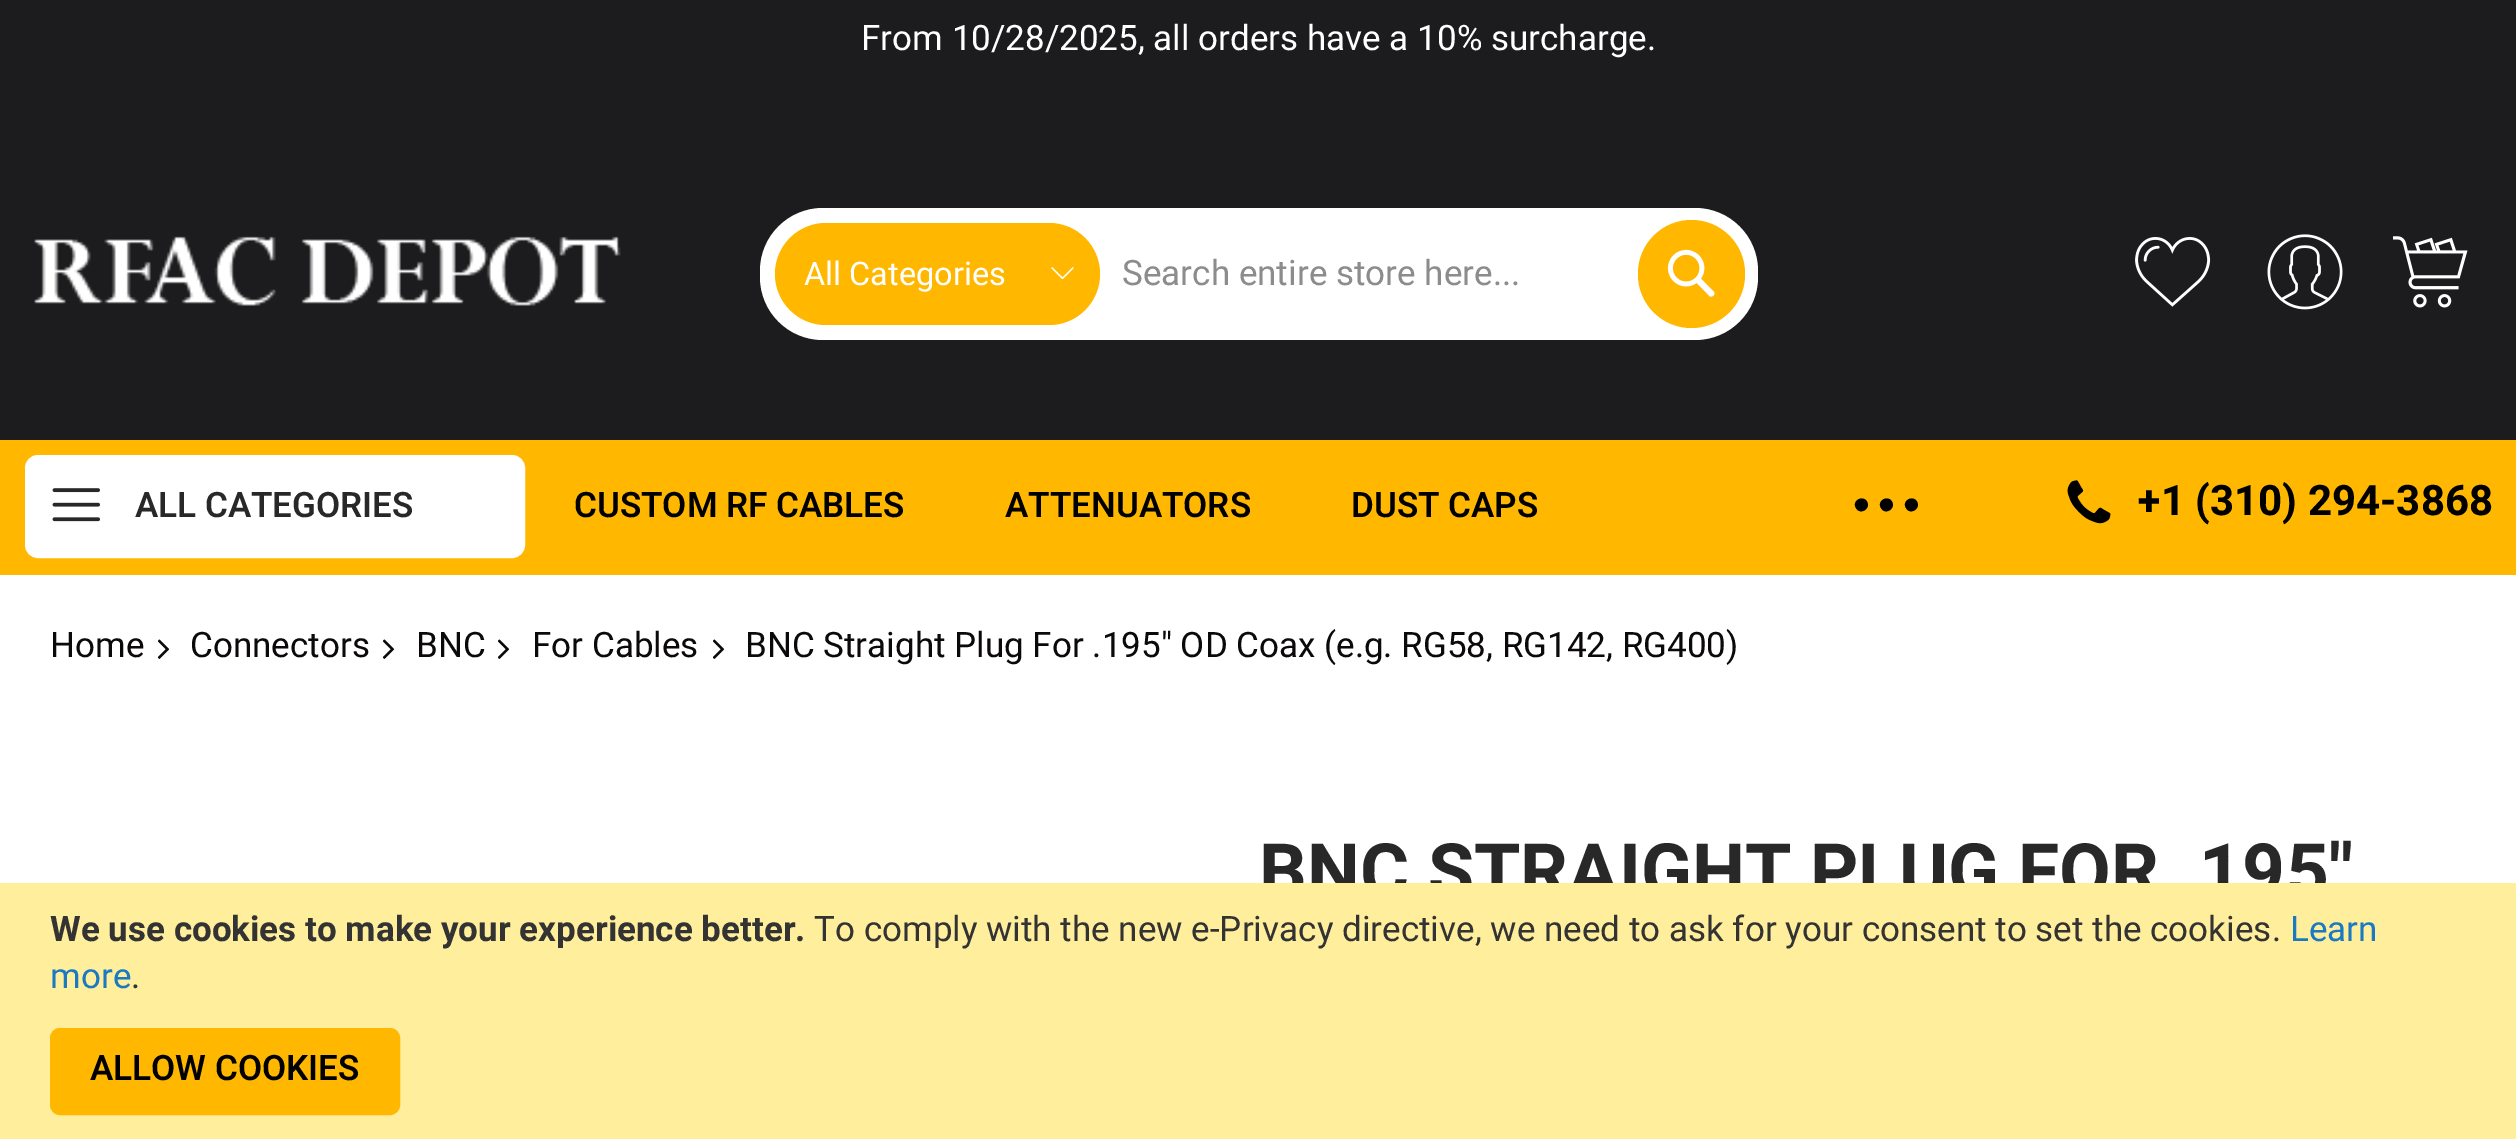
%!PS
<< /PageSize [2516 1139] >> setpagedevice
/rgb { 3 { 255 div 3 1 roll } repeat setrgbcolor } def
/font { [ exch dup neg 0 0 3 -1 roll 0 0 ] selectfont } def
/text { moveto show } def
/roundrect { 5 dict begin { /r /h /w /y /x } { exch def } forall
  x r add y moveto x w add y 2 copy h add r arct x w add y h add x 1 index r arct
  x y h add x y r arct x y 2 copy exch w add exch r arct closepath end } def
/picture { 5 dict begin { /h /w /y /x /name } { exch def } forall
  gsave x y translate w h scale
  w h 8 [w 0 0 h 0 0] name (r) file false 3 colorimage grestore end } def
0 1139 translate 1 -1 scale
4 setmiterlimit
255 255 255 rgb
0 0 2516 1139 rectfill
28 28 30 rgb
0 0 2516 440 rectfill
(img_01.rgb) 34 236 587 70 picture
255 255 255 rgb
760 208 998 132 63 roundrect fill
255 183 0 rgb
775 223 325 102 51 roundrect fill
(img_02.rgb) 1051 267 23 13 picture
1638 220 107 108 53.5 roundrect fill
(img_03.rgb) 1667 249 48 48 picture
(img_04.rgb) 2135 237 76 70 picture
(img_05.rgb) 2267 234 76 76 picture
(img_06.rgb) 2393 236 75 72 picture
0 440 2516 135 rectfill
255 255 255 rgb
26.5 456.5 497 100 11.5 roundrect gsave fill grestore
3 setlinewidth
stroke
(img_07.rgb) 52 488 48 34 picture
0 0 0 rgb
1867 501.5 moveto 4 7.5 -7 14 -11 6.5 rcurveto -4.5 -7 6.5 -13.5 11 -6.5 rcurveto closepath 1892 501.5 moveto 4 7.5 -7 14 -11 6.5 rcurveto -4.5 -7 6.5 -13.5 11 -6.5 rcurveto closepath fill
1917 501.5 moveto 4 7.5 -7 14 -11 6.5 rcurveto -4.5 -7 6.5 -13.5 11 -6.5 rcurveto closepath fill
(img_08.rgb) 2067 480 44 44 picture
(img_09.rgb) 158 639 12 20 picture
(img_09.rgb) 383 639 12 20 picture
(img_09.rgb) 498 639 12 20 picture
(img_09.rgb) 713 639 12 20 picture
/Heebo-Regular 35 font
255 255 255 rgb
(From 10/28/2025, all orders have a 10% surcharge.) 861 50 text
/Heebo-Regular 32.5 font
(All Categories) 804 285 text
/Heebo-Regular 35 font
140 140 140 rgb
(Search entire store here...) 1122 285 text
/Heebo-SemiBold 35 font
40 40 40 rgb
(ALL CATEGORIES) 135 517 text
0 0 0 rgb
(CUSTOM RF CABLES) 574 517 text
(ATTENUATORS) 1005 517 text
(DUST CAPS) 1351 517 text
/Heebo-Bold 42 font
(+1 \(310\) 294-3868) 2137 515 text
/Heebo-Regular 35 font
12 9 10 rgb
(Home) 50 657 text
(Connectors) 190 657 text
(BNC) 416 657 text
(For Cables) 532 657 text
(BNC Straight Plug For .195" OD Coax \(e.g. RG58, RG142, RG400\)) 745 657 text
/Heebo-Bold 75 font
40 40 40 rgb
(BNC STRAIGHT PLUG FOR .195") 1259 897 text
255 238 156 rgb
0 883 2516 256 rectfill
/Heebo-Bold 35 font
51 51 51 rgb
(We use cookies to make your experience better.) 50 941 text
/Heebo-Regular 35 font
(To comply with the new e-Privacy directive, we need to ask for your consent to set the cookies.) 814 941 text
25 121 195 rgb
(Learn) 2290 941 text
(more) 50 988 text
51 51 51 rgb
(.) 131 988 text
255 183 0 rgb
51.5 1029.5 347 84 8.5 roundrect gsave fill grestore
stroke
/Heebo-SemiBold 35 font
0 0 0 rgb
(ALLOW COOKIES) 90 1080 text
showpage
